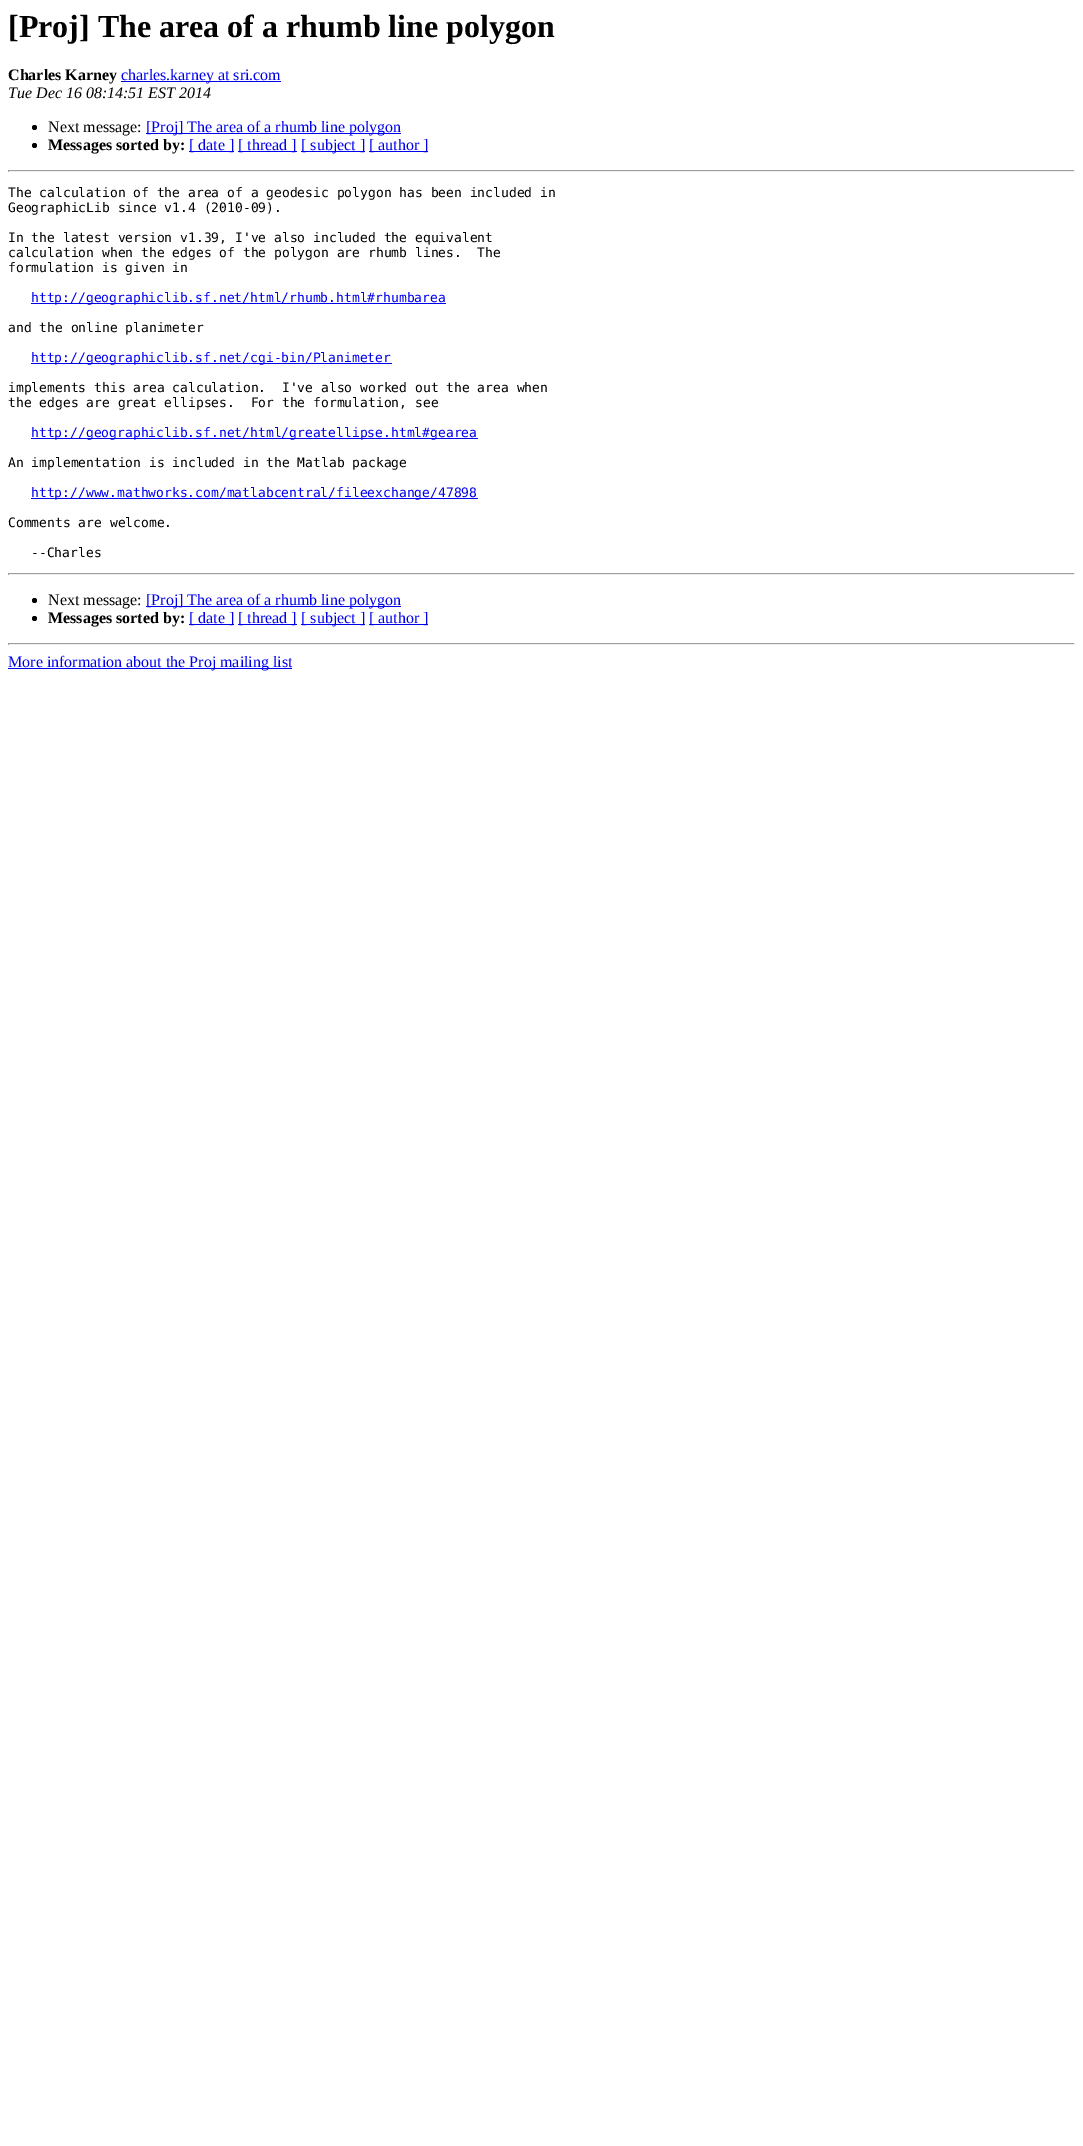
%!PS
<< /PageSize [1083 2146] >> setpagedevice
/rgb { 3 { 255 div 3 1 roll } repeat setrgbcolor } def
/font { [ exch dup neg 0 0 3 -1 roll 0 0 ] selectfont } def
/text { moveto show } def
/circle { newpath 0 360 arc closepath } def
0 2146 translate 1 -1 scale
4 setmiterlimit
255 255 255 rgb
0 0 1083 2146 rectfill
0 0 238 rgb
121 81 160 1 rectfill
0 0 0 rgb
34.5 127.5 2.5 circle fill
0 0 238 rgb
146 133 255 1 rectfill
0 0 0 rgb
34.5 145.5 2.5 circle fill
0 0 238 rgb
189 151 45 1 rectfill
238 151 59 1 rectfill
301 151 64 1 rectfill
369 151 59 1 rectfill
159 159 159 rgb
8 170 1067 1 rectfill
238 238 238 rgb
1074 170 1 2 rectfill
8 171 1067 1 rectfill
159 159 159 rgb
8 170 1 2 rectfill
0 0 238 rgb
31 303 415 1 rectfill
31 363 361 1 rectfill
31 438 447 1 rectfill
31 498 447 1 rectfill
159 159 159 rgb
8 573 1067 1 rectfill
238 238 238 rgb
1074 573 1 2 rectfill
8 574 1067 1 rectfill
159 159 159 rgb
8 573 1 2 rectfill
0 0 0 rgb
34.5 600.5 2.5 circle fill
0 0 238 rgb
146 606 255 1 rectfill
0 0 0 rgb
34.5 618.5 2.5 circle fill
0 0 238 rgb
189 624 45 1 rectfill
238 624 59 1 rectfill
301 624 64 1 rectfill
369 624 59 1 rectfill
159 159 159 rgb
8 643 1067 1 rectfill
238 238 238 rgb
1074 643 1 2 rectfill
8 644 1067 1 rectfill
159 159 159 rgb
8 643 1 2 rectfill
0 0 238 rgb
8 668 284 1 rectfill
/LiberationSerif-Bold 32 font
0 0 0 rgb
([Proj] The area of a rhumb line polygon) 8 37 text
/LiberationSerif-Bold 16 font
(Charles Karney) 8 80 text
/LiberationSerif-Regular 16 font
0 0 238 rgb
(charles.karney at sri.com) 121 80 text
/LiberationSerif-Italic 16 font
0 0 0 rgb
(Tue Dec 16 08:14:51 EST 2014) 8 98 text
/LiberationSerif-Regular 16 font
(Next message:) 48 132 text
0 0 238 rgb
([Proj] The area of a rhumb line polygon) 146 132 text
/LiberationSerif-Bold 16 font
0 0 0 rgb
(Messages sorted by:) 48 150 text
/LiberationSerif-Regular 16 font
0 0 238 rgb
([ date ]) 189 150 text
([ thread ]) 238 150 text
([ subject ]) 301 150 text
([ author ]) 369 150 text
/DejaVuSansMono-Regular 13 font
0 0 0 rgb
(The calculation of the area of a geodesic polygon has been included in) 8 197 text
(GeographicLib since v1.4 \(2010-09\).) 8 212 text
(In the latest version v1.39, I've also included the equivalent) 8 242 text
(calculation when the edges of the polygon are rhumb lines.  The) 8 257 text
(formulation is given in) 8 272 text
0 0 238 rgb
(http://geographiclib.sf.net/html/rhumb.html#rhumbarea) 31 302 text
0 0 0 rgb
(and the online planimeter) 8 332 text
0 0 238 rgb
(http://geographiclib.sf.net/cgi-bin/Planimeter) 31 362 text
0 0 0 rgb
(implements this area calculation.  I've also worked out the area when) 8 392 text
(the edges are great ellipses.  For the formulation, see) 8 407 text
0 0 238 rgb
(http://geographiclib.sf.net/html/greatellipse.html#gearea) 31 437 text
0 0 0 rgb
(An implementation is included in the Matlab package) 8 467 text
0 0 238 rgb
(http://www.mathworks.com/matlabcentral/fileexchange/47898) 31 497 text
0 0 0 rgb
(Comments are welcome.) 8 527 text
(--Charles) 31 557 text
/LiberationSerif-Regular 16 font
(Next message:) 48 605 text
0 0 238 rgb
([Proj] The area of a rhumb line polygon) 146 605 text
/LiberationSerif-Bold 16 font
0 0 0 rgb
(Messages sorted by:) 48 623 text
/LiberationSerif-Regular 16 font
0 0 238 rgb
([ date ]) 189 623 text
([ thread ]) 238 623 text
([ subject ]) 301 623 text
([ author ]) 369 623 text
(More information about the Proj mailing list) 8 667 text
showpage
